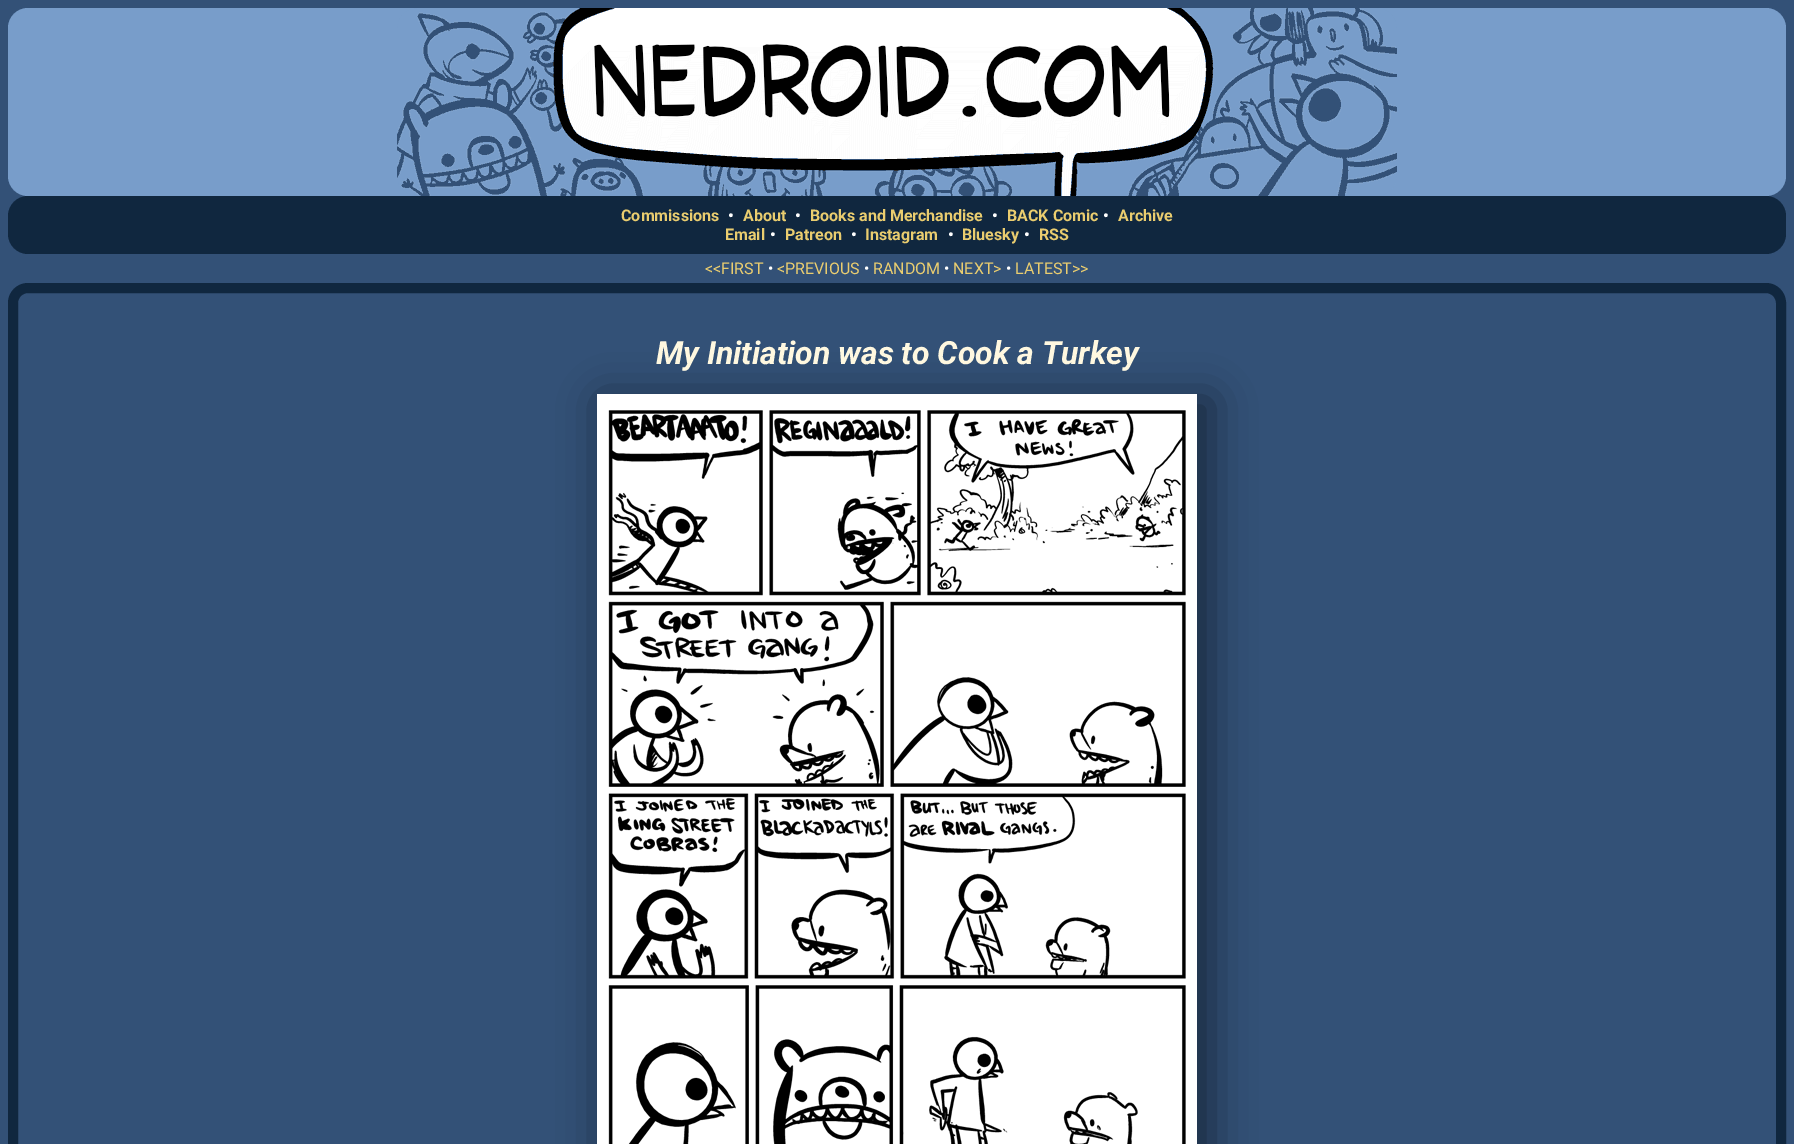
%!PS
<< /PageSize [1794 1144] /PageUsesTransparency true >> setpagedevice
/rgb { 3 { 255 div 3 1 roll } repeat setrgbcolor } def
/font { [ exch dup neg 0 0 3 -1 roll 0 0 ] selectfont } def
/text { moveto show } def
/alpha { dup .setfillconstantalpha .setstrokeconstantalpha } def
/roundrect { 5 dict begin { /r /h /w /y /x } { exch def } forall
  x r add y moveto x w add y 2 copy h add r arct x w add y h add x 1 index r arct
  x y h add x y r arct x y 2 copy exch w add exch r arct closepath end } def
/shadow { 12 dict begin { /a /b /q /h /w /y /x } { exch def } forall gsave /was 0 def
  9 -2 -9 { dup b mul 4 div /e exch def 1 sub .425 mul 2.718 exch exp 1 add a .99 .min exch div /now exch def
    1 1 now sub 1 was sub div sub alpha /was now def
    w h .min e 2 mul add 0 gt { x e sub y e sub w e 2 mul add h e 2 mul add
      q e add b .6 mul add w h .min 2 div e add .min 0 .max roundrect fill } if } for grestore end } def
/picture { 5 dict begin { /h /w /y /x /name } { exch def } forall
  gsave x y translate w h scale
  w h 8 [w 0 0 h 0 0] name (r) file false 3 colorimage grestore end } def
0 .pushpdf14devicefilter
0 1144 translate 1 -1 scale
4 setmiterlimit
51 81 119 rgb
0 0 1794 1144 rectfill
120 157 202 rgb
8 8 1778 188 20 roundrect fill
(img_01.rgb) 397 8 1000 188 picture
16 39 63 rgb
8 196 1778 58 20 roundrect fill
10 setlinewidth
13 288 1768 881 15 roundrect stroke
0 0 0 rgb
602 399 610 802 0 21 0.47 shadow
(img_02.rgb) 597 394 600 750 picture
/Roboto-Bold 16 font
234 205 111 rgb
(Commissions) 621 221 text
255 255 255 rgb
(•) 728 221 text
234 205 111 rgb
(About) 743 221 text
255 255 255 rgb
(•) 795 221 text
234 205 111 rgb
(Books and Merchandise) 810 221 text
255 255 255 rgb
(•) 992 221 text
234 205 111 rgb
(BACK Comic) 1007 221 text
255 255 255 rgb
(•) 1103 221 text
234 205 111 rgb
(Archive) 1118 221 text
(Email) 725 240 text
255 255 255 rgb
(•) 770 240 text
234 205 111 rgb
(Patreon) 785 240 text
255 255 255 rgb
(•) 851 240 text
234 205 111 rgb
(Instagram) 865 240 text
255 255 255 rgb
(•) 948 240 text
234 205 111 rgb
(Bluesky) 962 240 text
255 255 255 rgb
(•) 1024 240 text
234 205 111 rgb
(RSS) 1039 240 text
/Roboto-Regular 16 font
(<<FIRST) 705 274 text
255 255 255 rgb
(•) 768 274 text
234 205 111 rgb
(<PREVIOUS) 777 274 text
255 255 255 rgb
(•) 864 274 text
234 205 111 rgb
(RANDOM) 873 274 text
255 255 255 rgb
(•) 944 274 text
234 205 111 rgb
(NEXT>) 953 274 text
255 255 255 rgb
(•) 1006 274 text
234 205 111 rgb
(LATEST>>) 1015 274 text
/Roboto-BoldItalic 32 font
255 248 224 rgb
(My Initiation was to Cook a Turkey) 656 364 text
.poppdf14devicefilter showpage
